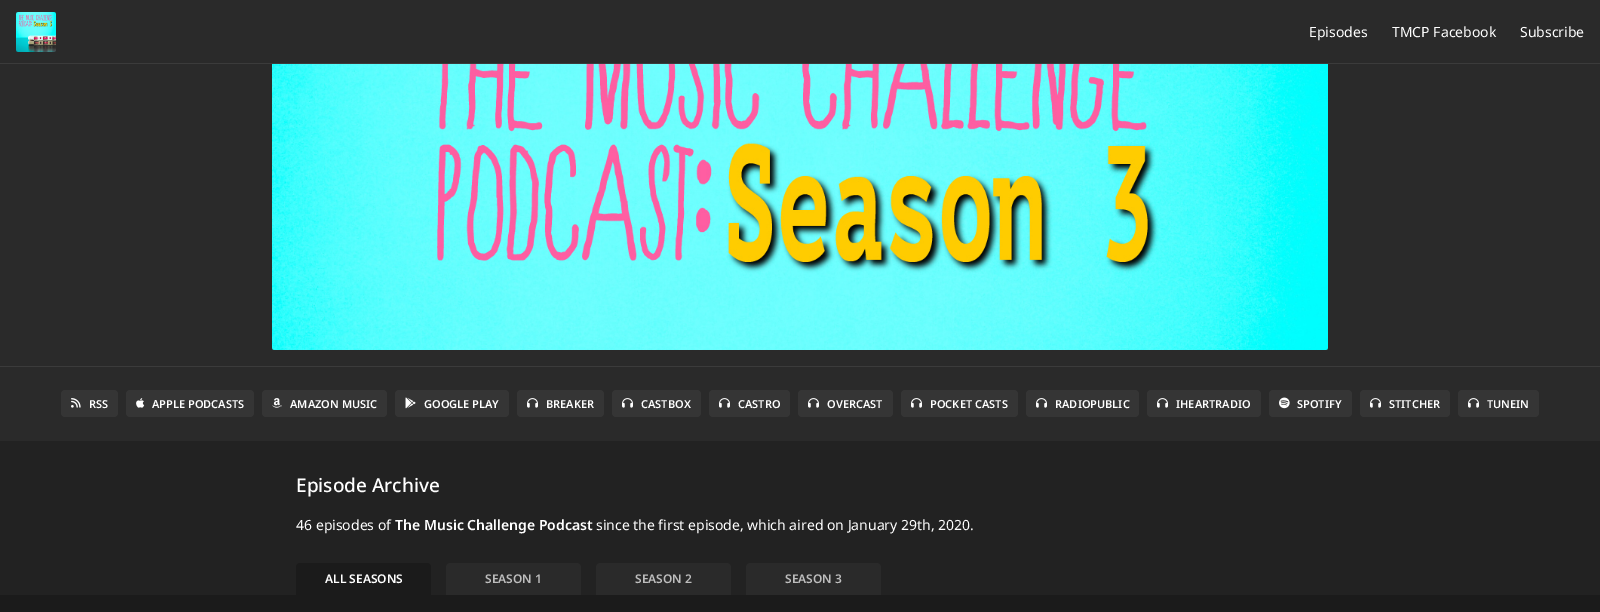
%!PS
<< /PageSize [1600 612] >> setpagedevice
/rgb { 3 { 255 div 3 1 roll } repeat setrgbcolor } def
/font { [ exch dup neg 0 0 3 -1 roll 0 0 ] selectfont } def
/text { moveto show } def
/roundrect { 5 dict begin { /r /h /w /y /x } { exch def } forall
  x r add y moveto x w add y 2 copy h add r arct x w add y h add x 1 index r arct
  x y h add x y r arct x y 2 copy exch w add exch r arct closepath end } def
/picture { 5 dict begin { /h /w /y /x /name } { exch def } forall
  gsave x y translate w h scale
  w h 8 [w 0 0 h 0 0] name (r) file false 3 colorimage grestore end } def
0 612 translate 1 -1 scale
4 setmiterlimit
34 34 34 rgb
0 0 1600 612 rectfill
42 42 42 rgb
0 0 1600 63 rectfill
59 59 59 rgb
0 63 1600 1 rectfill
(img_01.rgb) 16 12 40 40 picture
42 42 42 rgb
0 64 1600 302 rectfill
(img_02.rgb) 272 64 1056 286 picture
0 367 1600 74 rectfill
59 59 59 rgb
0 366 1600 1 rectfill
53 53 53 rgb
61 390 57 27 4 roundrect fill
(img_03.rgb) 71 398 10 10 picture
126 390 128 27 4 roundrect fill
(img_04.rgb) 136 398 9 10 picture
262 390 125 27 4 roundrect fill
(img_05.rgb) 272 398 10 10 picture
395 390 114 27 4 roundrect fill
(img_06.rgb) 405 397 11 12 picture
517 390 87 27 4 roundrect fill
(img_07.rgb) 527 398 11 10 picture
612 390 89 27 4 roundrect fill
(img_07.rgb) 622 398 11 10 picture
709 390 81 27 4 roundrect fill
(img_07.rgb) 719 398 11 10 picture
798 390 95 27 4 roundrect fill
(img_07.rgb) 808 398 11 10 picture
901 390 117 27 4 roundrect fill
(img_07.rgb) 911 398 11 10 picture
1026 390 113 27 4 roundrect fill
(img_07.rgb) 1036 398 11 10 picture
1147 390 114 27 4 roundrect fill
(img_07.rgb) 1157 398 11 10 picture
1269 390 83 27 4 roundrect fill
(img_08.rgb) 1279 397 11 12 picture
1360 390 90 27 4 roundrect fill
(img_07.rgb) 1370 398 11 10 picture
1458 390 81 27 4 roundrect fill
(img_07.rgb) 1468 398 11 10 picture
27 27 27 rgb
300 563 moveto 127 0 rlineto 2 0 4 2 4 4 rcurveto 0 28 rlineto -135 0 rlineto 0 -28 rlineto 0 -2 2 -4 4 -4 rcurveto closepath fill
42 42 42 rgb
450 563 moveto 127 0 rlineto 2 0 4 2 4 4 rcurveto 0 28 rlineto -135 0 rlineto 0 -28 rlineto 0 -2 2 -4 4 -4 rcurveto closepath fill
600 563 moveto 127 0 rlineto 2 0 4 2 4 4 rcurveto 0 28 rlineto -135 0 rlineto 0 -28 rlineto 0 -2 2 -4 4 -4 rcurveto closepath fill
750 563 moveto 127 0 rlineto 2 0 4 2 4 4 rcurveto 0 28 rlineto -135 0 rlineto 0 -28 rlineto 0 -2 2 -4 4 -4 rcurveto closepath fill
27 27 27 rgb
0 595 1600 17 rectfill
/NotoSans-Regular 14 font
255 255 255 rgb
(Episodes) 1309 37 text
(TMCP Facebook) 1392 37 text
(Subscribe) 1520 37 text
/NotoSans-SemiBold 11 font
(RSS) 89 408 text
(APPLE PODCASTS) 152 408 text
(AMAZON MUSIC) 290 408 text
(GOOGLE PLAY) 424 408 text
(BREAKER) 546 408 text
(CASTBOX) 641 408 text
(CASTRO) 738 408 text
(OVERCAST) 827 408 text
(POCKET CASTS) 930 408 text
(RADIOPUBLIC) 1055 408 text
(IHEARTRADIO) 1176 408 text
(SPOTIFY) 1297 408 text
(STITCHER) 1389 408 text
(TUNEIN) 1487 408 text
/NotoSans-Medium 19 font
(Episode Archive) 296 492 text
/NotoSans-Regular 14 font
(46 episodes of) 296 530 text
/NotoSans-SemiBold 14 font
(The Music Challenge Podcast) 395 530 text
/NotoSans-Regular 14 font
(since the first episode, which aired on January 29th, 2020.) 596 530 text
/NotoSans-SemiBold 12 font
(ALL SEASONS) 325 583 text
189 189 189 rgb
(SEASON 1) 485 583 text
(SEASON 2) 635 583 text
(SEASON 3) 785 583 text
showpage
